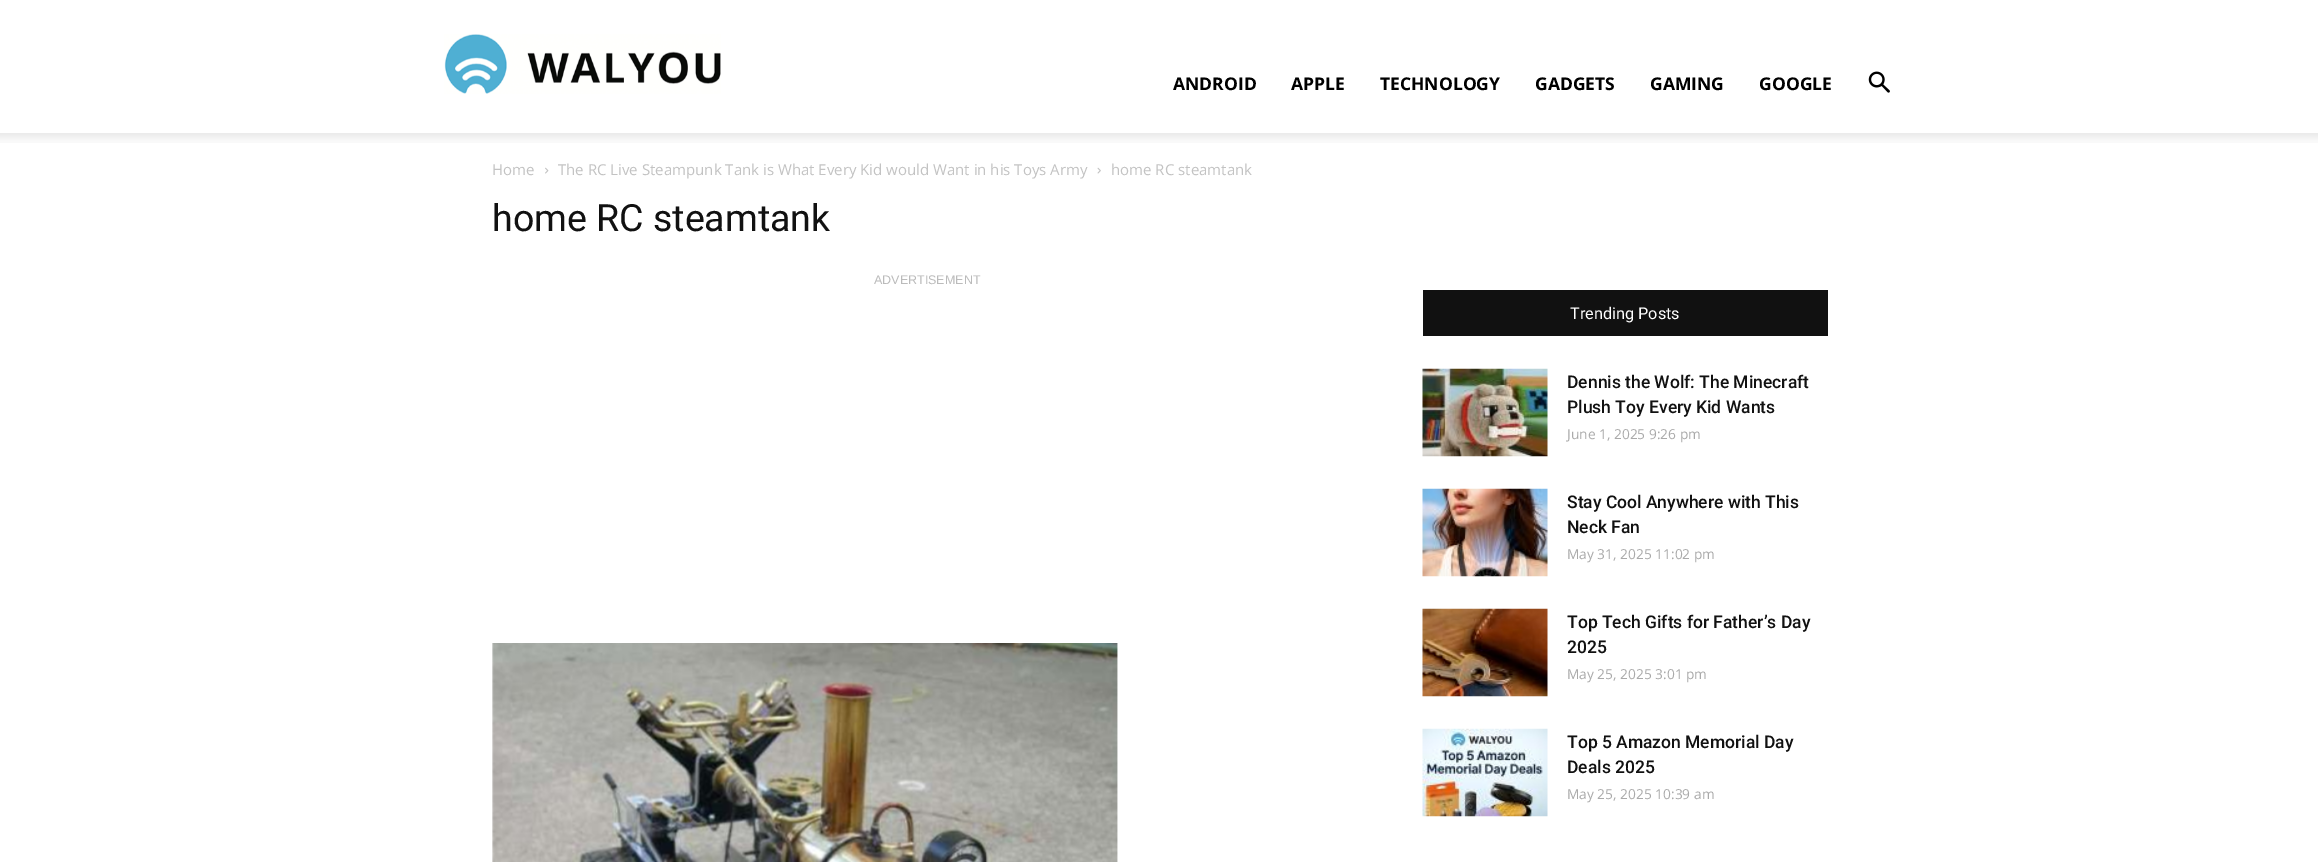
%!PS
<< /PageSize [2318 862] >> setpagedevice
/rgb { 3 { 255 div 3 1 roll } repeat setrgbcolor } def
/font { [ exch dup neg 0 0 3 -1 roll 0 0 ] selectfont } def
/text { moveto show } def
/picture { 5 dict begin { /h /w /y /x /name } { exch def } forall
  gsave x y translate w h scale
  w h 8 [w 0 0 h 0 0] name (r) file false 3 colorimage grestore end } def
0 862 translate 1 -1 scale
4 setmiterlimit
255 255 255 rgb
0 0 2318 862 rectfill
(img_01.rgb) 444 34 277 60 picture
(img_02.rgb) 1868 71 22 22 picture
(img_03.rgb) 0 133 2318 10 picture
(img_04.rgb) 545 167 4 7 picture
(img_05.rgb) 1097 167 4 7 picture
(img_06.rgb) 492 643 626 219 picture
17 17 17 rgb
1423 290 405 46 rectfill
(img_07.rgb) 1422 368 126 89 picture
(img_08.rgb) 1422 488 126 89 picture
(img_09.rgb) 1422 608 126 89 picture
(img_10.rgb) 1422 728 126 89 picture
/OpenSans-Bold 17.5 font
0 0 0 rgb
(ANDROID) 1173 90 text
(APPLE) 1291 90 text
(TECHNOLOGY) 1380 90 text
(GADGETS) 1535 90 text
(GAMING) 1650 90 text
(GOOGLE) 1759 90 text
/OpenSans-Regular 15 font
195 195 195 rgb
(Home) 492 175 text
(The RC Live Steampunk Tank is What Every Kid would Want in his Toys Army) 558 175 text
(home RC steamtank) 1111 175 text
/Roboto-Regular 37.5 font
17 17 17 rgb
(home RC steamtank) 492 231 text
/LiberationSans-Regular 12.5 font
187 187 187 rgb
(ADVERTISEMENT) 874 284 text
/Roboto-Regular 16.25 font
255 255 255 rgb
(Trending Posts) 1570 319 text
/Roboto-Medium 17.5 font
17 17 17 rgb
(Dennis the Wolf: The Minecraft) 1567 388 text
(Plush Toy Every Kid Wants) 1567 413 text
/OpenSans-Regular 13.75 font
170 170 170 rgb
(June 1, 2025 9:26 pm) 1567 439 text
/Roboto-Medium 17.5 font
17 17 17 rgb
(Stay Cool Anywhere with This) 1567 508 text
(Neck Fan) 1567 533 text
/OpenSans-Regular 13.75 font
170 170 170 rgb
(May 31, 2025 11:02 pm) 1567 559 text
/Roboto-Medium 17.5 font
17 17 17 rgb
(Top Tech Gifts for Father’s Day) 1567 628 text
(2025) 1567 653 text
/OpenSans-Regular 13.75 font
170 170 170 rgb
(May 25, 2025 3:01 pm) 1567 679 text
/Roboto-Medium 17.5 font
17 17 17 rgb
(Top 5 Amazon Memorial Day) 1567 748 text
(Deals 2025) 1567 773 text
/OpenSans-Regular 13.75 font
170 170 170 rgb
(May 25, 2025 10:39 am) 1567 799 text
showpage
